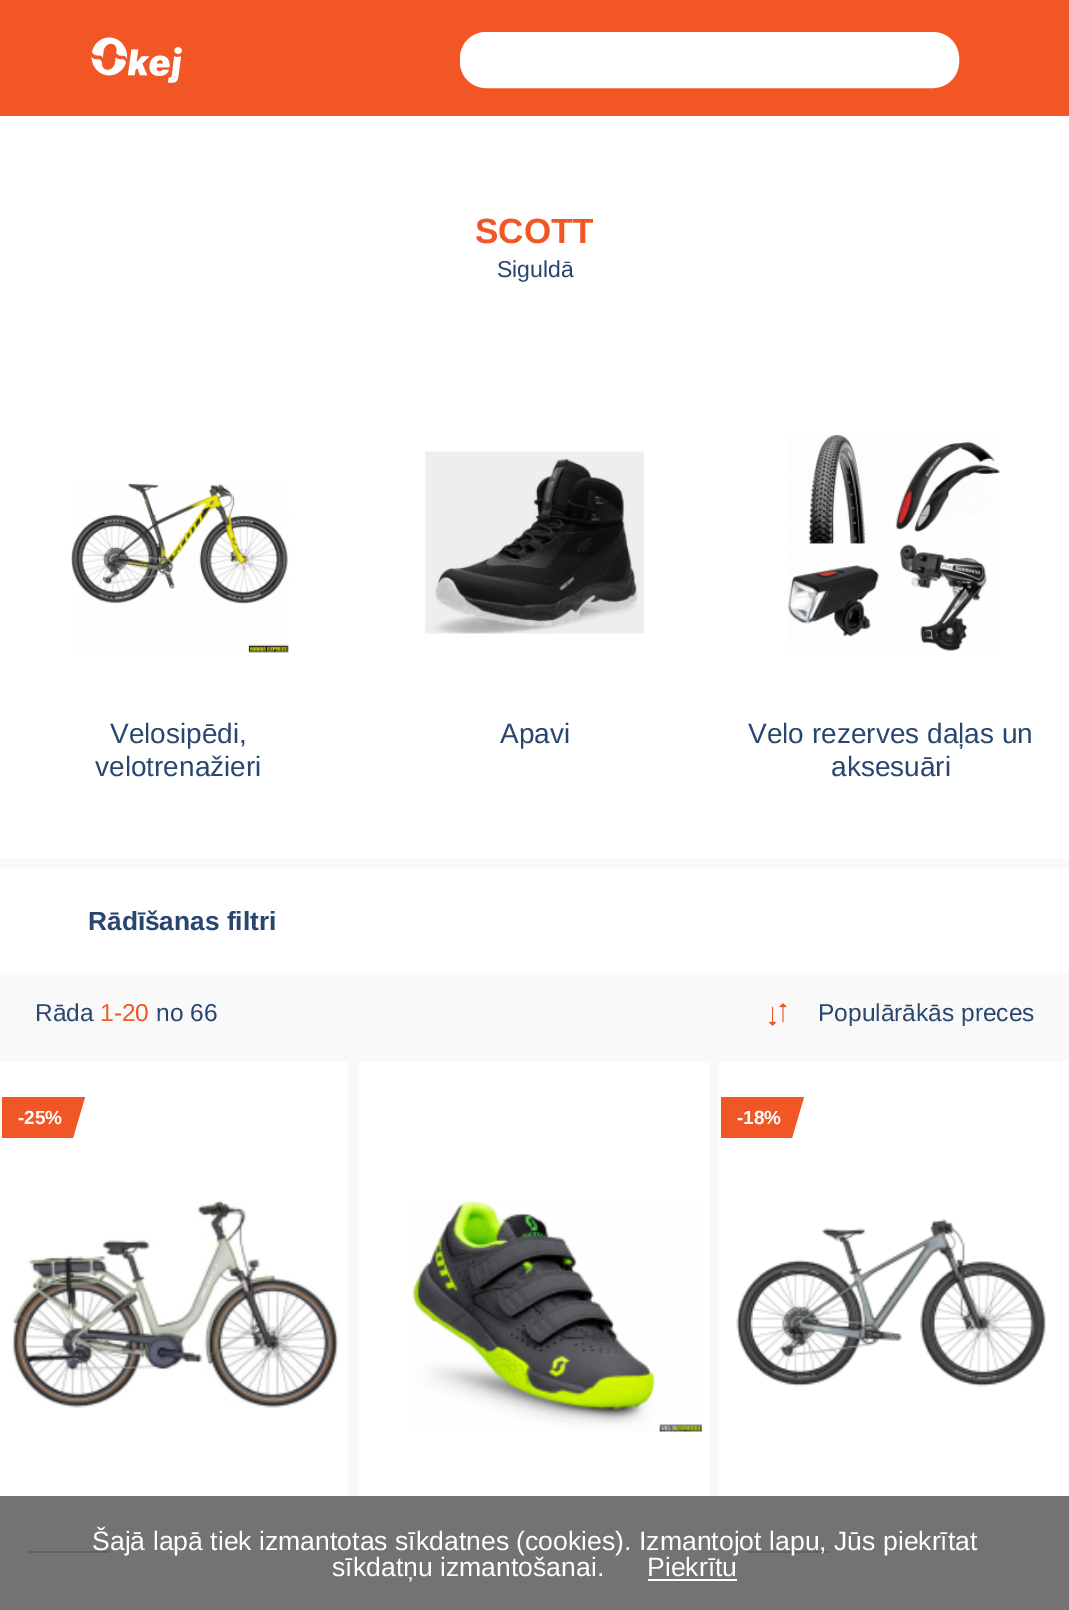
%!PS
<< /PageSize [1069 1610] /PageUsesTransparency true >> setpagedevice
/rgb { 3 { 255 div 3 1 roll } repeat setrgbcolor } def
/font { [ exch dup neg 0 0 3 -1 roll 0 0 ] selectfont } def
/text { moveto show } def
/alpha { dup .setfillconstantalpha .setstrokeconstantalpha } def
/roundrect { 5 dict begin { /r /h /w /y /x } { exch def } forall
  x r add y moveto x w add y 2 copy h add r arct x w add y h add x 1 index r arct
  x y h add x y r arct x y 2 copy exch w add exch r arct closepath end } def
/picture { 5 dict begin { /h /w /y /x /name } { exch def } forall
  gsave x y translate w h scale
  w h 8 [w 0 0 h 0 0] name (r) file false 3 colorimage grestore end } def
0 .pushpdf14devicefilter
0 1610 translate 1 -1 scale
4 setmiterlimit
242 86 36 rgb
0 0 1069 1610 rectfill
(img_01.rgb) 91 37 91 46 picture
255 255 255 rgb
461 33 497 54 25 roundrect gsave fill grestore
2 setlinewidth
stroke
249 249 249 rgb
0 858 1069 752 rectfill
255 255 255 rgb
0 116 1069 742 rectfill
(img_02.rgb) 71 483 218 170 picture
(img_03.rgb) 425 451 219 183 picture
(img_04.rgb) 787 434 213 217 picture
0 868 1069 105 rectfill
(img_05.rgb) 769 1003 18 23 picture
0 1062 348 548 rectfill
241 86 38 rgb
85 1097 moveto -83 0 rlineto 0 41 rlineto 71 0 rlineto closepath eofill
(img_06.rgb) 11 1200 328 208 picture
40 70 111 rgb
28 1551 82 2 rectfill
255 255 255 rgb
359 1062 350 548 rectfill
(img_07.rgb) 412 1201 290 231 picture
719 1062 349 548 rectfill
241 86 38 rgb
804 1097 moveto -83 0 rlineto 0 41 rlineto 71 0 rlineto closepath eofill
(img_08.rgb) 736 1219 310 168 picture
40 70 111 rgb
747 1551 83 2 rectfill
0.9 alpha
100 100 100 rgb
0 1496 1069 114 rectfill
1 alpha
255 255 255 rgb
648 1579 89 2 rectfill
/LiberationSans-Bold 35 font
242 86 36 rgb
(SCOTT) 475 243 text
/LiberationSans-Regular 23 font
40 70 111 rgb
(Siguldā) 497 277 text
/LiberationSans-Regular 28 font
(Velosipēdi,) 110 743 text
(velotrenažieri) 95 776 text
(Apavi) 500 743 text
(Velo rezerves daļas un) 748 743 text
(aksesuāri) 831 776 text
/LiberationSans-Bold 26.25 font
(Rādīšanas filtri) 88 930 text
/LiberationSans-Regular 24.5 font
(Rāda) 35 1021 text
242 86 36 rgb
(1-20) 100 1021 text
40 70 111 rgb
(no 66) 156 1021 text
(Populārākās preces) 818 1021 text
/LiberationSans-Bold 19 font
255 255 255 rgb
(-25%) 18 1124 text
(-18%) 737 1124 text
/LiberationSans-Regular 26.6 font
(Šajā lapā tiek izmantotas sīkdatnes \(cookies\). Izmantojot lapu, Jūs piekrītat) 92 1550 text
(sīkdatņu izmantošanai.) 332 1576 text
(Piekrītu) 647 1576 text
.poppdf14devicefilter showpage
